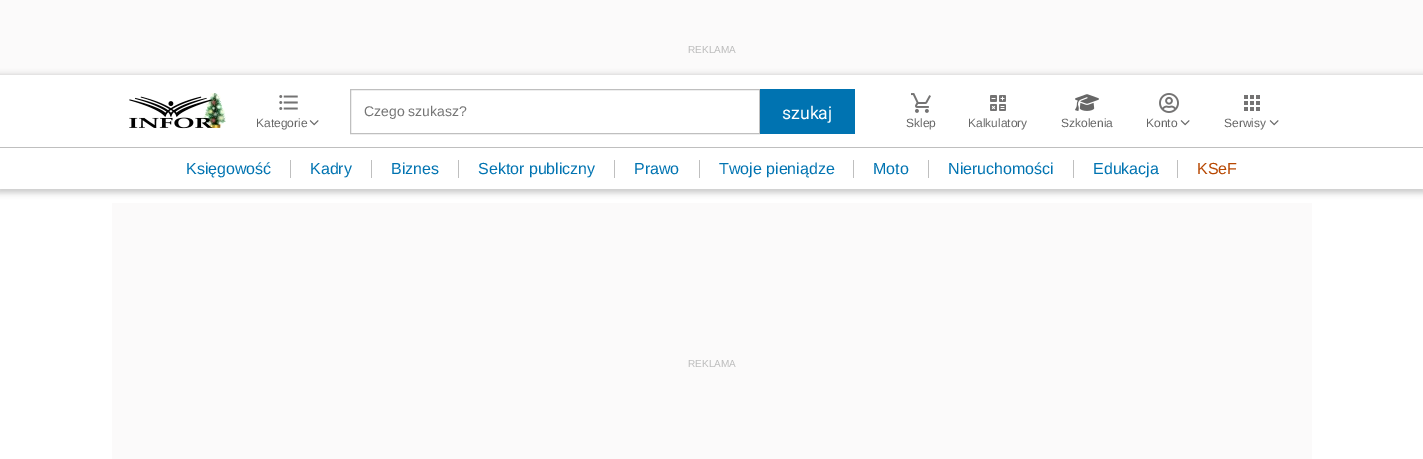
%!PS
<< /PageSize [1423 459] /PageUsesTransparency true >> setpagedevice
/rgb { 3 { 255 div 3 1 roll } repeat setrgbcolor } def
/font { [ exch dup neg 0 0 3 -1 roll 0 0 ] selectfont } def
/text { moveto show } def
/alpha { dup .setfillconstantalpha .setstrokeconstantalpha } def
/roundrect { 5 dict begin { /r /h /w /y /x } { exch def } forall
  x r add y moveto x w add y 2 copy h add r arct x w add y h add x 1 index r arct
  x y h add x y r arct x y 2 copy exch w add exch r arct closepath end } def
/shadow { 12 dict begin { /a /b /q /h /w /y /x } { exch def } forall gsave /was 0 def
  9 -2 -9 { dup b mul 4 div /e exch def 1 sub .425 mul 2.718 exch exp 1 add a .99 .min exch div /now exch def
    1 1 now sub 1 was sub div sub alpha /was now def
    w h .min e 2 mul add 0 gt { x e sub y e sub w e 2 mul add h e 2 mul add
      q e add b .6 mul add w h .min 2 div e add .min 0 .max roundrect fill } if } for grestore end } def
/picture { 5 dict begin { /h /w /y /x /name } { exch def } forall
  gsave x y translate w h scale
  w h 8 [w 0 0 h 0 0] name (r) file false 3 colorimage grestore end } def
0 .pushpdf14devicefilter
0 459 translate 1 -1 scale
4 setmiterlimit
255 255 255 rgb
0 0 1423 459 rectfill
251 250 250 rgb
0 0 1423 75 rectfill
gsave
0 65 moveto 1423 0 rlineto 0 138 rlineto -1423 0 rlineto closepath 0 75 moveto 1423 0 rlineto 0 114 rlineto -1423 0 rlineto closepath eoclip newpath
0 0 0 rgb
-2 75 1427 118 0 3 0.2 shadow
grestore
(img_01.rgb) 129 93 97 36 picture
(img_02.rgb) 279 95 19 15 picture
(img_03.rgb) 309 120 10 6 picture
191 191 191 rgb
350.5 89.5 409 44 rectstroke
0 115 177 rgb
760 89 95 45 rectfill
(img_04.rgb) 911 93 20 20 picture
(img_05.rgb) 990 95 16 16 picture
(img_06.rgb) 1075 94 24 17 picture
(img_07.rgb) 1159 93 20 20 picture
(img_03.rgb) 1180 120 10 6 picture
(img_08.rgb) 1244 95 16 16 picture
(img_03.rgb) 1269 120 10 6 picture
191 191 191 rgb
0 147 1423 1 rectfill
290 160 1 18 rectfill
371 160 1 18 rectfill
458 160 1 18 rectfill
614 160 1 18 rectfill
699 160 1 18 rectfill
853 160 1 18 rectfill
928 160 1 18 rectfill
1073 160 1 18 rectfill
1177 160 1 18 rectfill
251 250 250 rgb
112 203 1200 256 rectfill
/LiberationSans-Regular 10 font
188 188 188 rgb
(REKLAMA) 688 53 text
/LiberationSans-Regular 12 font
102 102 102 rgb
(Kategorie) 256 127 text
/LiberationSans-Regular 14 font
117 117 117 rgb
(Czego szukasz?) 364 116 text
/Roboto-Regular 18 font
255 255 255 rgb
(szukaj) 782 119 text
/LiberationSans-Regular 12 font
102 102 102 rgb
(Sklep) 906 127 text
(Kalkulatory) 968 127 text
(Szkolenia) 1061 127 text
(Konto) 1146 127 text
(Serwisy) 1224 127 text
/LiberationSans-Regular 16 font
0 115 177 rgb
(Księgowość) 186 174 text
(Kadry) 310 174 text
(Biznes) 391 174 text
(Sektor publiczny) 478 174 text
(Prawo) 634 174 text
(Twoje pieniądze) 719 174 text
(Moto) 873 174 text
(Nieruchomości) 948 174 text
(Edukacja) 1093 174 text
183 71 1 rgb
(KSeF) 1197 174 text
/LiberationSans-Regular 10 font
188 188 188 rgb
(REKLAMA) 688 367 text
.poppdf14devicefilter showpage
